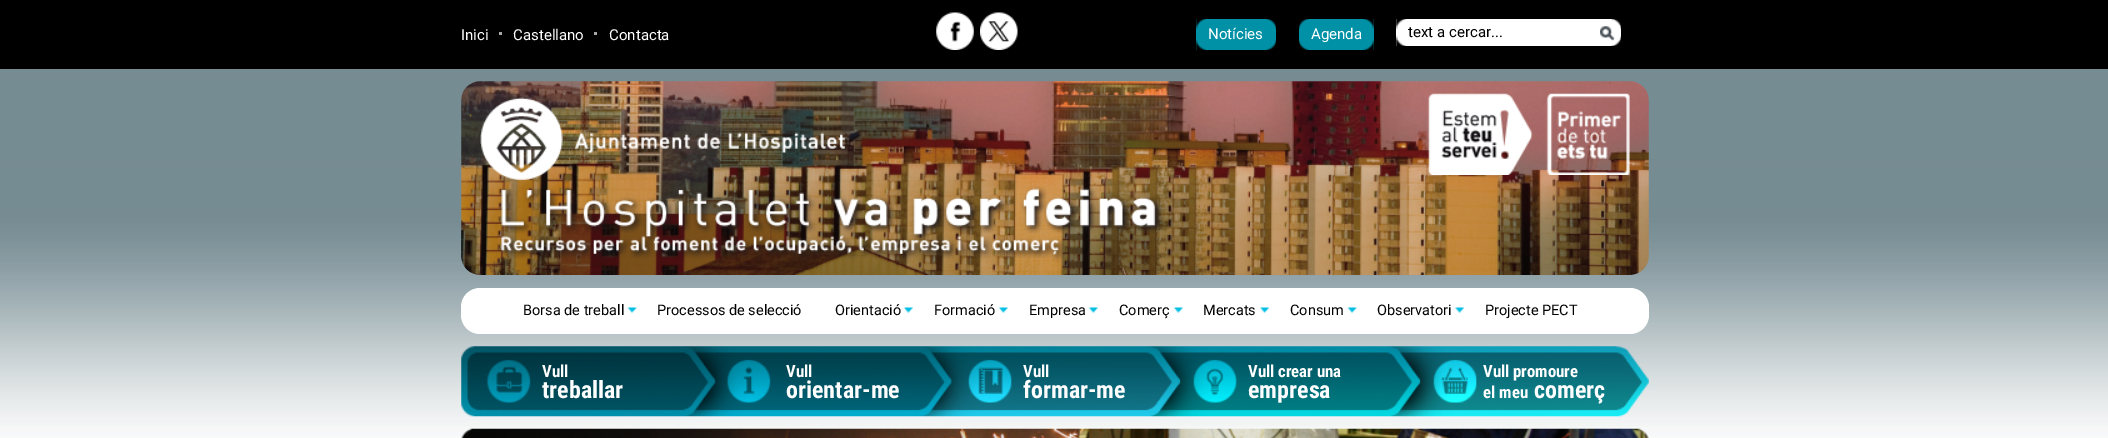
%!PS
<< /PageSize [2108 438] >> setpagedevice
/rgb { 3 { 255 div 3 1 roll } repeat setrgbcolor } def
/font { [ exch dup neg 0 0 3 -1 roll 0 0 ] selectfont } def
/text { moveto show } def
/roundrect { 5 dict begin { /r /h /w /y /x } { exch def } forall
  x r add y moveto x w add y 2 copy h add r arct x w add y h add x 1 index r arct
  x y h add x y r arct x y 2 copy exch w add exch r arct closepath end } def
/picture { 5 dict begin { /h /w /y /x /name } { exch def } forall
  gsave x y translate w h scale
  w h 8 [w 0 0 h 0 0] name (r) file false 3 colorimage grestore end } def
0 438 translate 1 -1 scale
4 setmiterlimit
255 255 255 rgb
0 0 2108 438 rectfill
(img_01.rgb) 0 69 2108 369 picture
0 0 0 rgb
0 0 2108 69 rectfill
168 168 168 rgb
499 32 3 3 rectfill
594 32 3 3 rectfill
(img_02.rgb) 936 12 38 38 picture
(img_03.rgb) 980 12 38 38 picture
0 145 166 rgb
1196 19 80 31 rectfill
(img_04.rgb) 1196 19 11 11 picture
(img_05.rgb) 1266 19 10 11 picture
(img_06.rgb) 1196 39 11 11 picture
(img_07.rgb) 1266 39 10 11 picture
1299 19 75 31 rectfill
(img_08.rgb) 1299 19 10 11 picture
(img_09.rgb) 1363 19 11 11 picture
(img_10.rgb) 1299 39 10 11 picture
(img_11.rgb) 1363 39 11 11 picture
255 255 255 rgb
1396 19 225 27 rectfill
(img_12.rgb) 1396 19 11 11 picture
(img_14.rgb) 1600 26 15 15 picture
(img_13.rgb) 1611 19 10 11 picture
(img_15.rgb) 1396 35 11 11 picture
(img_16.rgb) 1611 35 10 11 picture
(img_17.rgb) 461 81 1188 194 picture
(img_18.rgb) 480 97 365 83 picture
(img_19.rgb) 1427 93 203 82 picture
461 288 1188 46 19 roundrect fill
(img_20.rgb) 627 307 10 6 picture
(img_21.rgb) 903 307 10 6 picture
(img_21.rgb) 998 307 10 6 picture
(img_21.rgb) 1088 307 10 6 picture
(img_21.rgb) 1173 307 10 6 picture
(img_22.rgb) 1260 307 9 6 picture
(img_23.rgb) 1347 307 10 6 picture
(img_22.rgb) 1455 307 9 6 picture
(img_24.rgb) 461 346 1188 71 picture
(img_25.rgb) 461 428 1188 10 picture
/Roboto-Regular 15 font
(Inici) 461 40 text
(Castellano) 513 40 text
(Contacta) 609 40 text
(Notícies) 1208 39 text
(Agenda) 1311 39 text
0 0 0 rgb
(text a cercar...) 1408 37 text
/Roboto-Regular 14.5 font
(Borsa de treball) 523 315 text
(Processos de selecció) 657 315 text
(Orientació) 835 315 text
(Formació) 934 315 text
(Empresa) 1029 315 text
(Comerç) 1119 315 text
(Mercats) 1203 315 text
(Consum) 1290 315 text
(Observatori) 1377 315 text
(Projecte PECT) 1485 315 text
/RobotoCondensed-Bold 16.75 font
255 255 255 rgb
(Vull) 542 377 text
/RobotoCondensed-Bold 24 font
(treballar) 542 398 text
/RobotoCondensed-Bold 16.75 font
(Vull) 786 377 text
/RobotoCondensed-Bold 24 font
(orientar-me) 786 398 text
/RobotoCondensed-Bold 16.75 font
(Vull) 1023 377 text
/RobotoCondensed-Bold 24 font
(formar-me) 1023 398 text
/RobotoCondensed-Bold 16.75 font
(Vull crear una) 1248 377 text
/RobotoCondensed-Bold 24 font
(empresa) 1248 398 text
/RobotoCondensed-Bold 16.75 font
(Vull promoure) 1483 377 text
(el meu) 1483 398 text
/RobotoCondensed-Bold 24 font
(comerç) 1534 398 text
showpage
